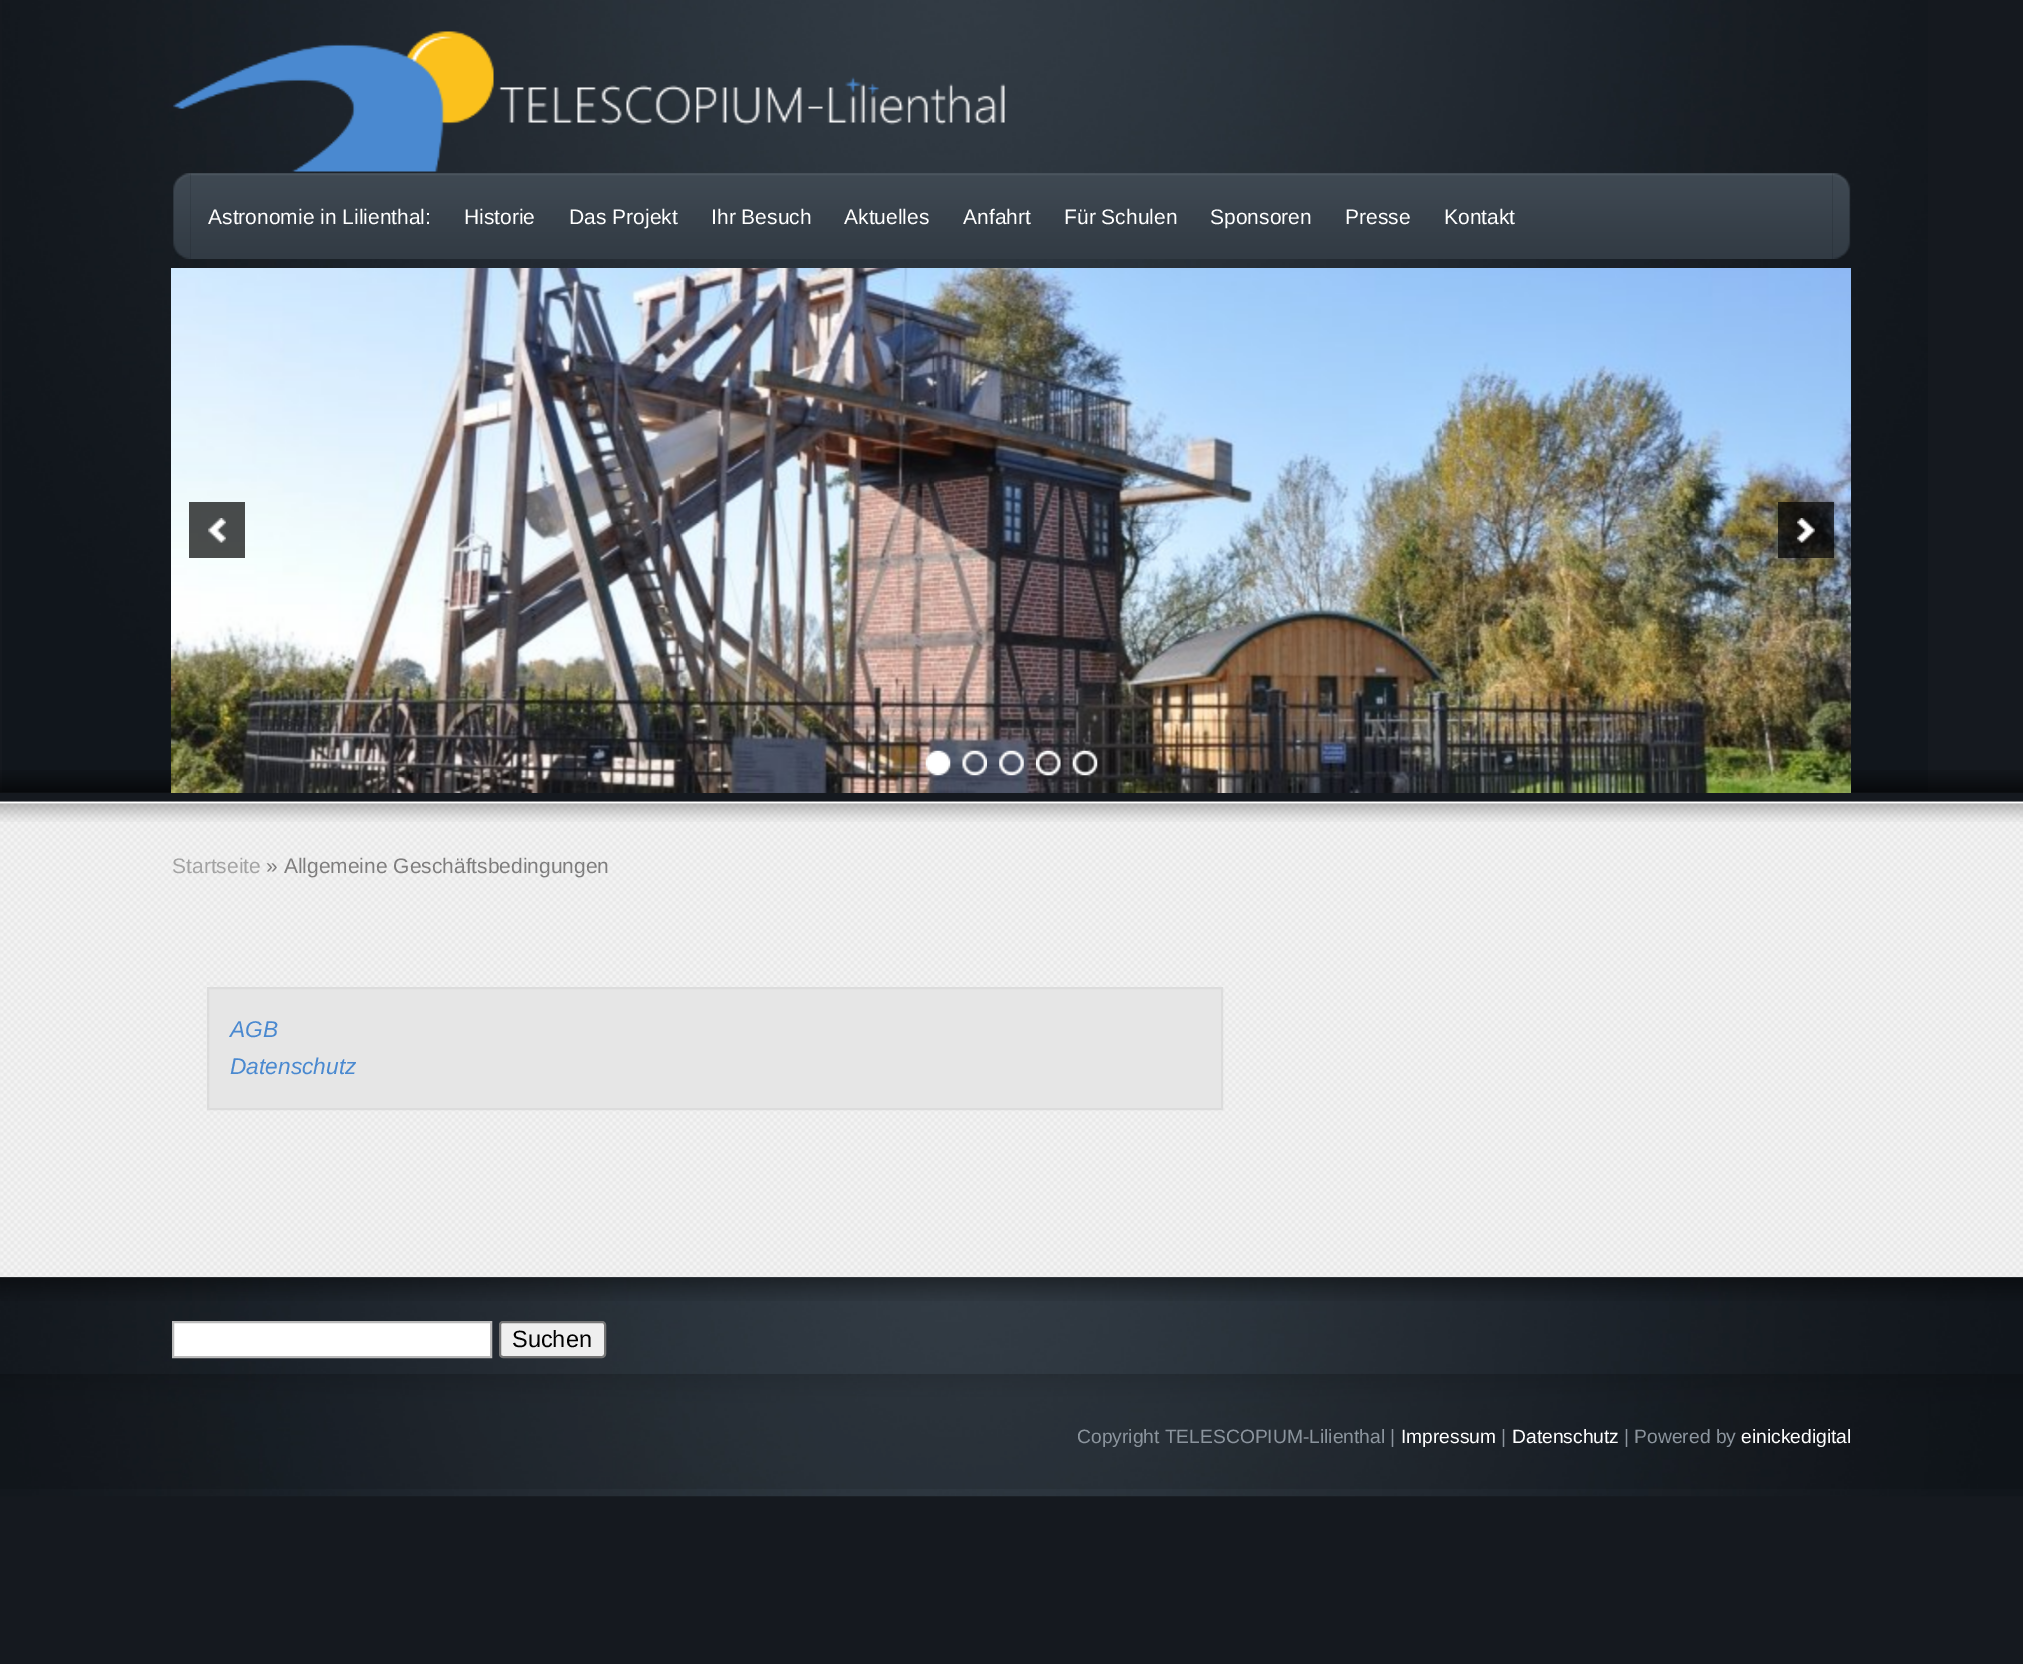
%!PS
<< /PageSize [2023 1664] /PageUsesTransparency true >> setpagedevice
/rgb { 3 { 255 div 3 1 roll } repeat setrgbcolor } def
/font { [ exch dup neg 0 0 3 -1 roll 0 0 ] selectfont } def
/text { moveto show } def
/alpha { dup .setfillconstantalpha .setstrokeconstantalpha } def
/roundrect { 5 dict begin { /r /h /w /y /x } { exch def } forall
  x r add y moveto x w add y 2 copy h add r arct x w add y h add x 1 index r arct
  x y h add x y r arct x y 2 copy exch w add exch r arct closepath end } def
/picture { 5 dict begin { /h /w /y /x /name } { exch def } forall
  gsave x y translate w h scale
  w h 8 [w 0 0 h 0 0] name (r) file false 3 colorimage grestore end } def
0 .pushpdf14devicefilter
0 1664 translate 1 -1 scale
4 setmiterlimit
21 25 31 rgb
0 0 2023 1664 rectfill
(img_01.rgb) 2 0 1926 792 picture
(img_02.rgb) 0 770 2023 23 picture
(img_03.rgb) 173 31 832 141 picture
(img_04.rgb) 173 173 18 86 picture
(img_05.rgb) 1832 173 19 86 picture
(img_06.rgb) 190 173 1643 86 picture
(img_07.rgb) 171 268 1680 525 picture
0.7 alpha
0 0 0 rgb
189 502 56 56 rectfill
1 alpha
(img_08.rgb) 208 518 18 25 picture
0.7 alpha
1778 502 56 56 rectfill
1 alpha
(img_09.rgb) 1797 518 18 25 picture
(img_10.rgb) 925 750 26 26 picture
(img_11.rgb) 962 750 25 26 picture
(img_12.rgb) 999 750 25 26 picture
(img_13.rgb) 1036 750 25 26 picture
(img_14.rgb) 1072 750 26 26 picture
(img_15.rgb) 0 801 2023 477 picture
255 255 255 rgb
0 802 2023 2 rectfill
(img_16.rgb) 0 803 2023 19 picture
230 230 230 rgb
208 988 moveto 1014 0 rlineto 0 121 rlineto -1014 0 rlineto closepath gsave fill grestore
220 220 220 rgb
2 setlinewidth
stroke
0.5 alpha
16 22 28 rgb
0 1277 2023 1 rectfill
1 alpha
(img_17.rgb) 0 1277 2023 220 picture
(img_18.rgb) 0 1277 2023 24 picture
255 255 255 rgb
173 1322 moveto 318 0 rlineto 0 35 rlineto -318 0 rlineto closepath gsave fill grestore
187 187 187 rgb
stroke
239 239 239 rgb
500 1322 105 35 3 roundrect gsave fill grestore
118 118 118 rgb
stroke
(img_19.rgb) 0 1374 2023 115 picture
/LiberationSans-Regular 21 font
255 255 255 rgb
(Astronomie in Lilienthal:) 208 224 text
(Historie) 464 224 text
(Das Projekt) 569 224 text
(Ihr Besuch) 711 224 text
(Aktuelles) 844 224 text
(Anfahrt) 963 224 text
(Für Schulen) 1064 224 text
(Sponsoren) 1210 224 text
(Presse) 1345 224 text
(Kontakt) 1444 224 text
163 163 163 rgb
(Startseite) 172 873 text
126 125 125 rgb
(» Allgemeine Geschäftsbedingungen) 266 873 text
/LiberationSans-Italic 22.75 font
74 137 208 rgb
(AGB) 230 1037 text
(Datenschutz) 230 1074 text
/LiberationSans-Regular 23.5 font
0 0 0 rgb
(Suchen) 512 1347 text
/LiberationSans-Regular 19.25 font
139 148 157 rgb
(Copyright TELESCOPIUM-Lilienthal |) 1077 1443 text
255 255 255 rgb
(Impressum) 1401 1443 text
139 148 157 rgb
(|) 1501 1443 text
255 255 255 rgb
(Datenschutz) 1512 1443 text
139 148 157 rgb
(| Powered by) 1624 1443 text
255 255 255 rgb
(einickedigital) 1741 1443 text
.poppdf14devicefilter showpage
